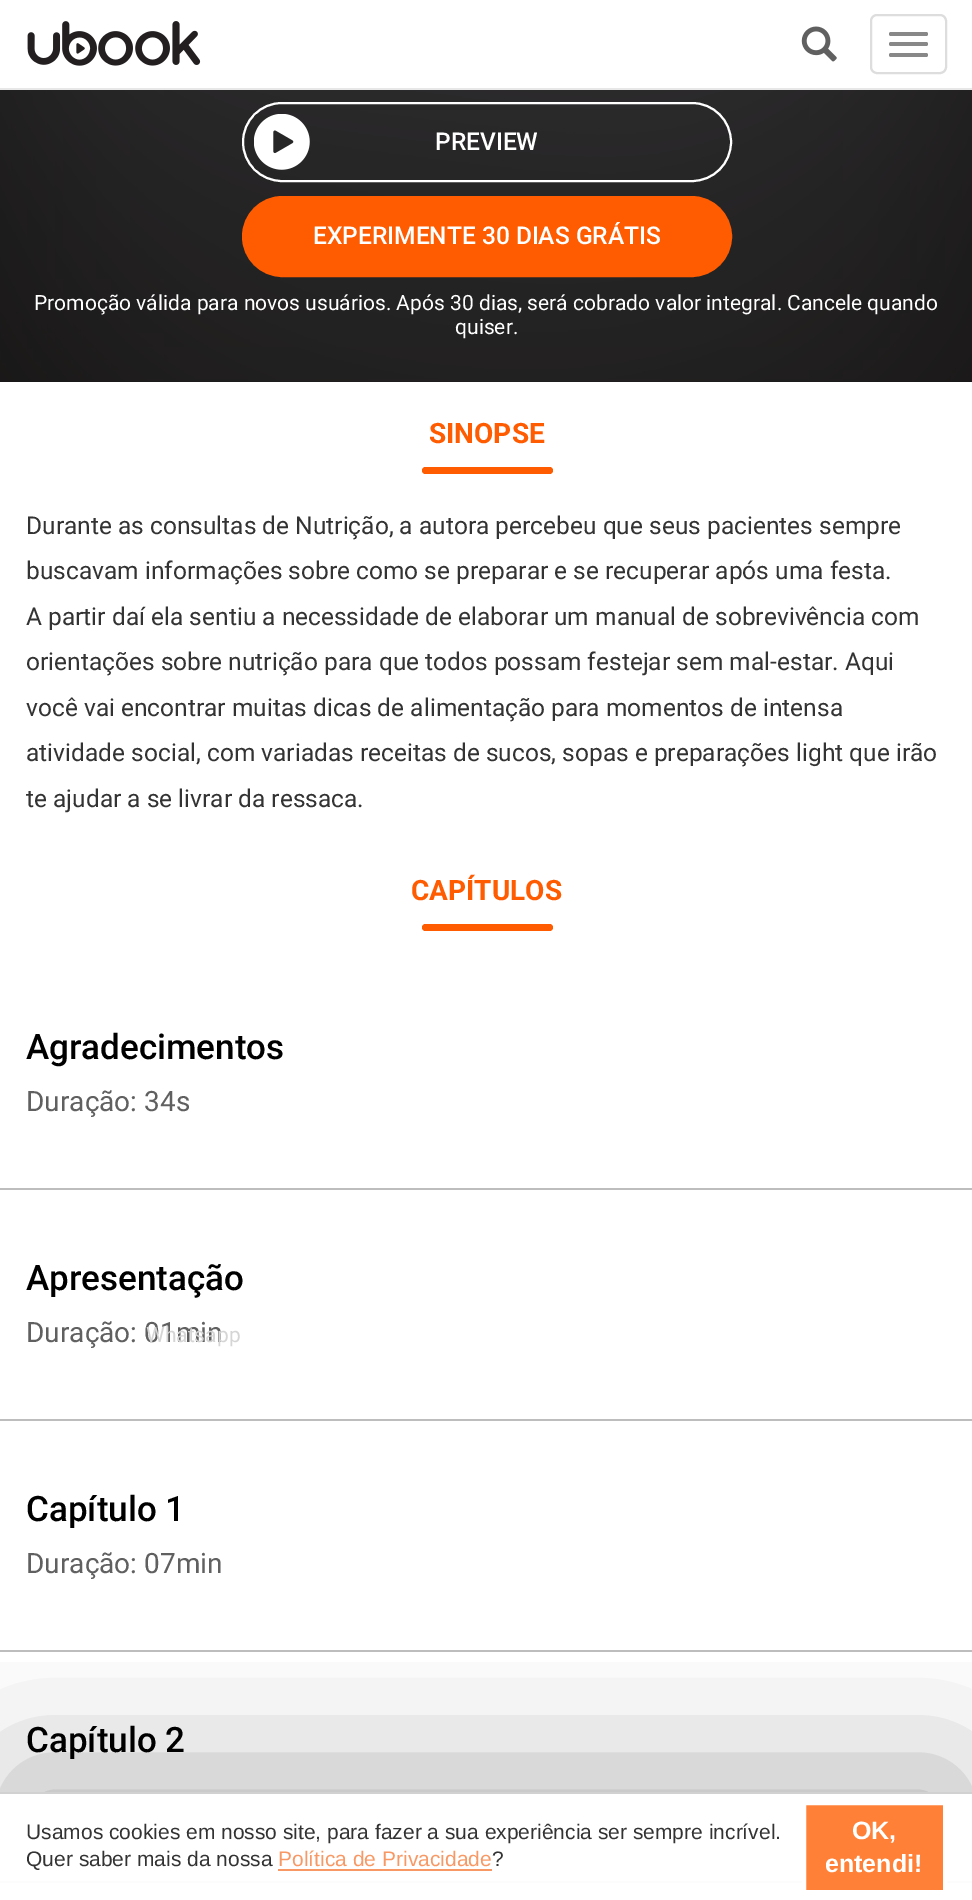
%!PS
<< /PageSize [972 1900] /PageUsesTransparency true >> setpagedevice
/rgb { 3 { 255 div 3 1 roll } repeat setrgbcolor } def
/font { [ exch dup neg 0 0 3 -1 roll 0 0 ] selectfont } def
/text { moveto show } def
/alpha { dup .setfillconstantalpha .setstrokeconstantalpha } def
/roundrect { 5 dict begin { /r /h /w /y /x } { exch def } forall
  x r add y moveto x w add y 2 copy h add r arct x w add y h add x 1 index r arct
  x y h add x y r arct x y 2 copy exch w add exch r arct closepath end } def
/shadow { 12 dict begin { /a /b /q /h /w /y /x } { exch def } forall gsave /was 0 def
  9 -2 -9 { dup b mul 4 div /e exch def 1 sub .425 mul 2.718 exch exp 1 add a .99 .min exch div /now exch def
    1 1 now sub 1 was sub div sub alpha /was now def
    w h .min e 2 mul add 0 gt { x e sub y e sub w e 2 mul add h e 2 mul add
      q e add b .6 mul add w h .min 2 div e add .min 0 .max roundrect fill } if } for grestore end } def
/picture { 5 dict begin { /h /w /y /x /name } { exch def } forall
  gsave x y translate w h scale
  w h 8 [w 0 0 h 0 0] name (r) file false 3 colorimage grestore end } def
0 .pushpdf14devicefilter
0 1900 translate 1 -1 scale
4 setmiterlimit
255 255 255 rgb
0 0 972 1900 rectfill
231 231 231 rgb
0 88 972 2 rectfill
(img_01.rgb) 27 21 174 45 picture
(img_02.rgb) 801 26 36 36 picture
221 221 221 rgb
2 setlinewidth
871 15 75 58 6 roundrect stroke
136 136 136 rgb
889 32 39 4 2 roundrect fill
889 42 39 4 2 roundrect fill
889 53 39 4 2 roundrect fill
21 21 21 rgb
0 90 972 292 rectfill
(img_03.rgb) 0 90 972 292 picture
255 255 255 rgb
243 103 488 78 39 roundrect stroke
(img_04.rgb) 254 114 56 56 picture
255 91 0 rgb
243 197 488 79 39.5 roundrect gsave fill grestore
stroke
422 467 131 7 3.5 roundrect fill
422 924 131 7 3.5 roundrect fill
189 189 189 rgb
0 1188 972 2 rectfill
0 1419 972 2 rectfill
0 1650 972 2 rectfill
0 1881 972 2 rectfill
gsave
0 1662 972 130 rectclip
0 0 0 rgb
14 1771 945 81 0 74.5 0.3 shadow
grestore
0.96 alpha
255 255 255 rgb
0 1881 972 2 rectfill
0.18 alpha
0 0 0 rgb
0 1792 972 2 rectfill
1 alpha
248 153 101 rgb
278 1869 214 2 rectfill
255 128 54 rgb
804 1803 moveto 141 0 rlineto 0 89 rlineto -141 0 rlineto closepath gsave fill grestore
255 255 255 rgb
4 setlinewidth
stroke
/Roboto-Medium 24.5 font
(PREVIEW) 435 150 text
(EXPERIMENTE 30 DIAS GRÁTIS) 313 244 text
/Roboto-Regular 21 font
(Promoção válida para novos usuários. Após 30 dias, será cobrado valor integral. Cancele quando) 34 310 text
(quiser.) 455 334 text
/Roboto-Bold 28 font
255 91 0 rgb
(SINOPSE) 429 443 text
/Roboto-Regular 24.5 font
51 51 51 rgb
(Durante as consultas de Nutrição, a autora percebeu que seus pacientes sempre) 26 534 text
(buscavam informações sobre como se preparar e se recuperar após uma festa.) 26 579 text
(A partir daí ela sentiu a necessidade de elaborar um manual de sobrevivência com) 26 625 text
(orientações sobre nutrição para que todos possam festejar sem mal-estar. Aqui) 26 670 text
(você vai encontrar muitas dicas de alimentação para momentos de intensa) 26 716 text
(atividade social, com variadas receitas de sucos, sopas e preparações light que irão) 26 761 text
(te ajudar a se livrar da ressaca.) 26 807 text
/Roboto-Bold 28 font
255 91 0 rgb
(CAPÍTULOS) 411 900 text
/Roboto-Medium 35 font
0 0 0 rgb
(Agradecimentos) 26 1059 text
/Roboto-Regular 28 font
96 96 96 rgb
(Duração: 34s) 26 1111 text
/Roboto-Medium 35 font
0 0 0 rgb
(Apresentação) 26 1290 text
/Roboto-Regular 28 font
96 96 96 rgb
(Duração: 01min) 26 1342 text
/Roboto-Medium 35 font
0 0 0 rgb
(Capítulo 1) 26 1521 text
/Roboto-Regular 28 font
96 96 96 rgb
(Duração: 07min) 26 1573 text
/Roboto-Medium 35 font
0 0 0 rgb
(Capítulo 2) 26 1752 text
/LiberationSans-Regular 21 font
51 51 51 rgb
(Usamos cookies em nosso site, para fazer a sua experiência ser sempre incrível.) 26 1839 text
(Quer saber mais da nossa) 26 1866 text
248 153 101 rgb
(Política de Privacidade) 278 1866 text
51 51 51 rgb
(?) 492 1866 text
/LiberationSans-Bold 25 font
255 255 255 rgb
(OK,) 852 1839 text
(entendi!) 825 1872 text
/Roboto-Regular 21 font
213 213 213 rgb
(Whatsapp) 146 1342 text
.poppdf14devicefilter showpage
